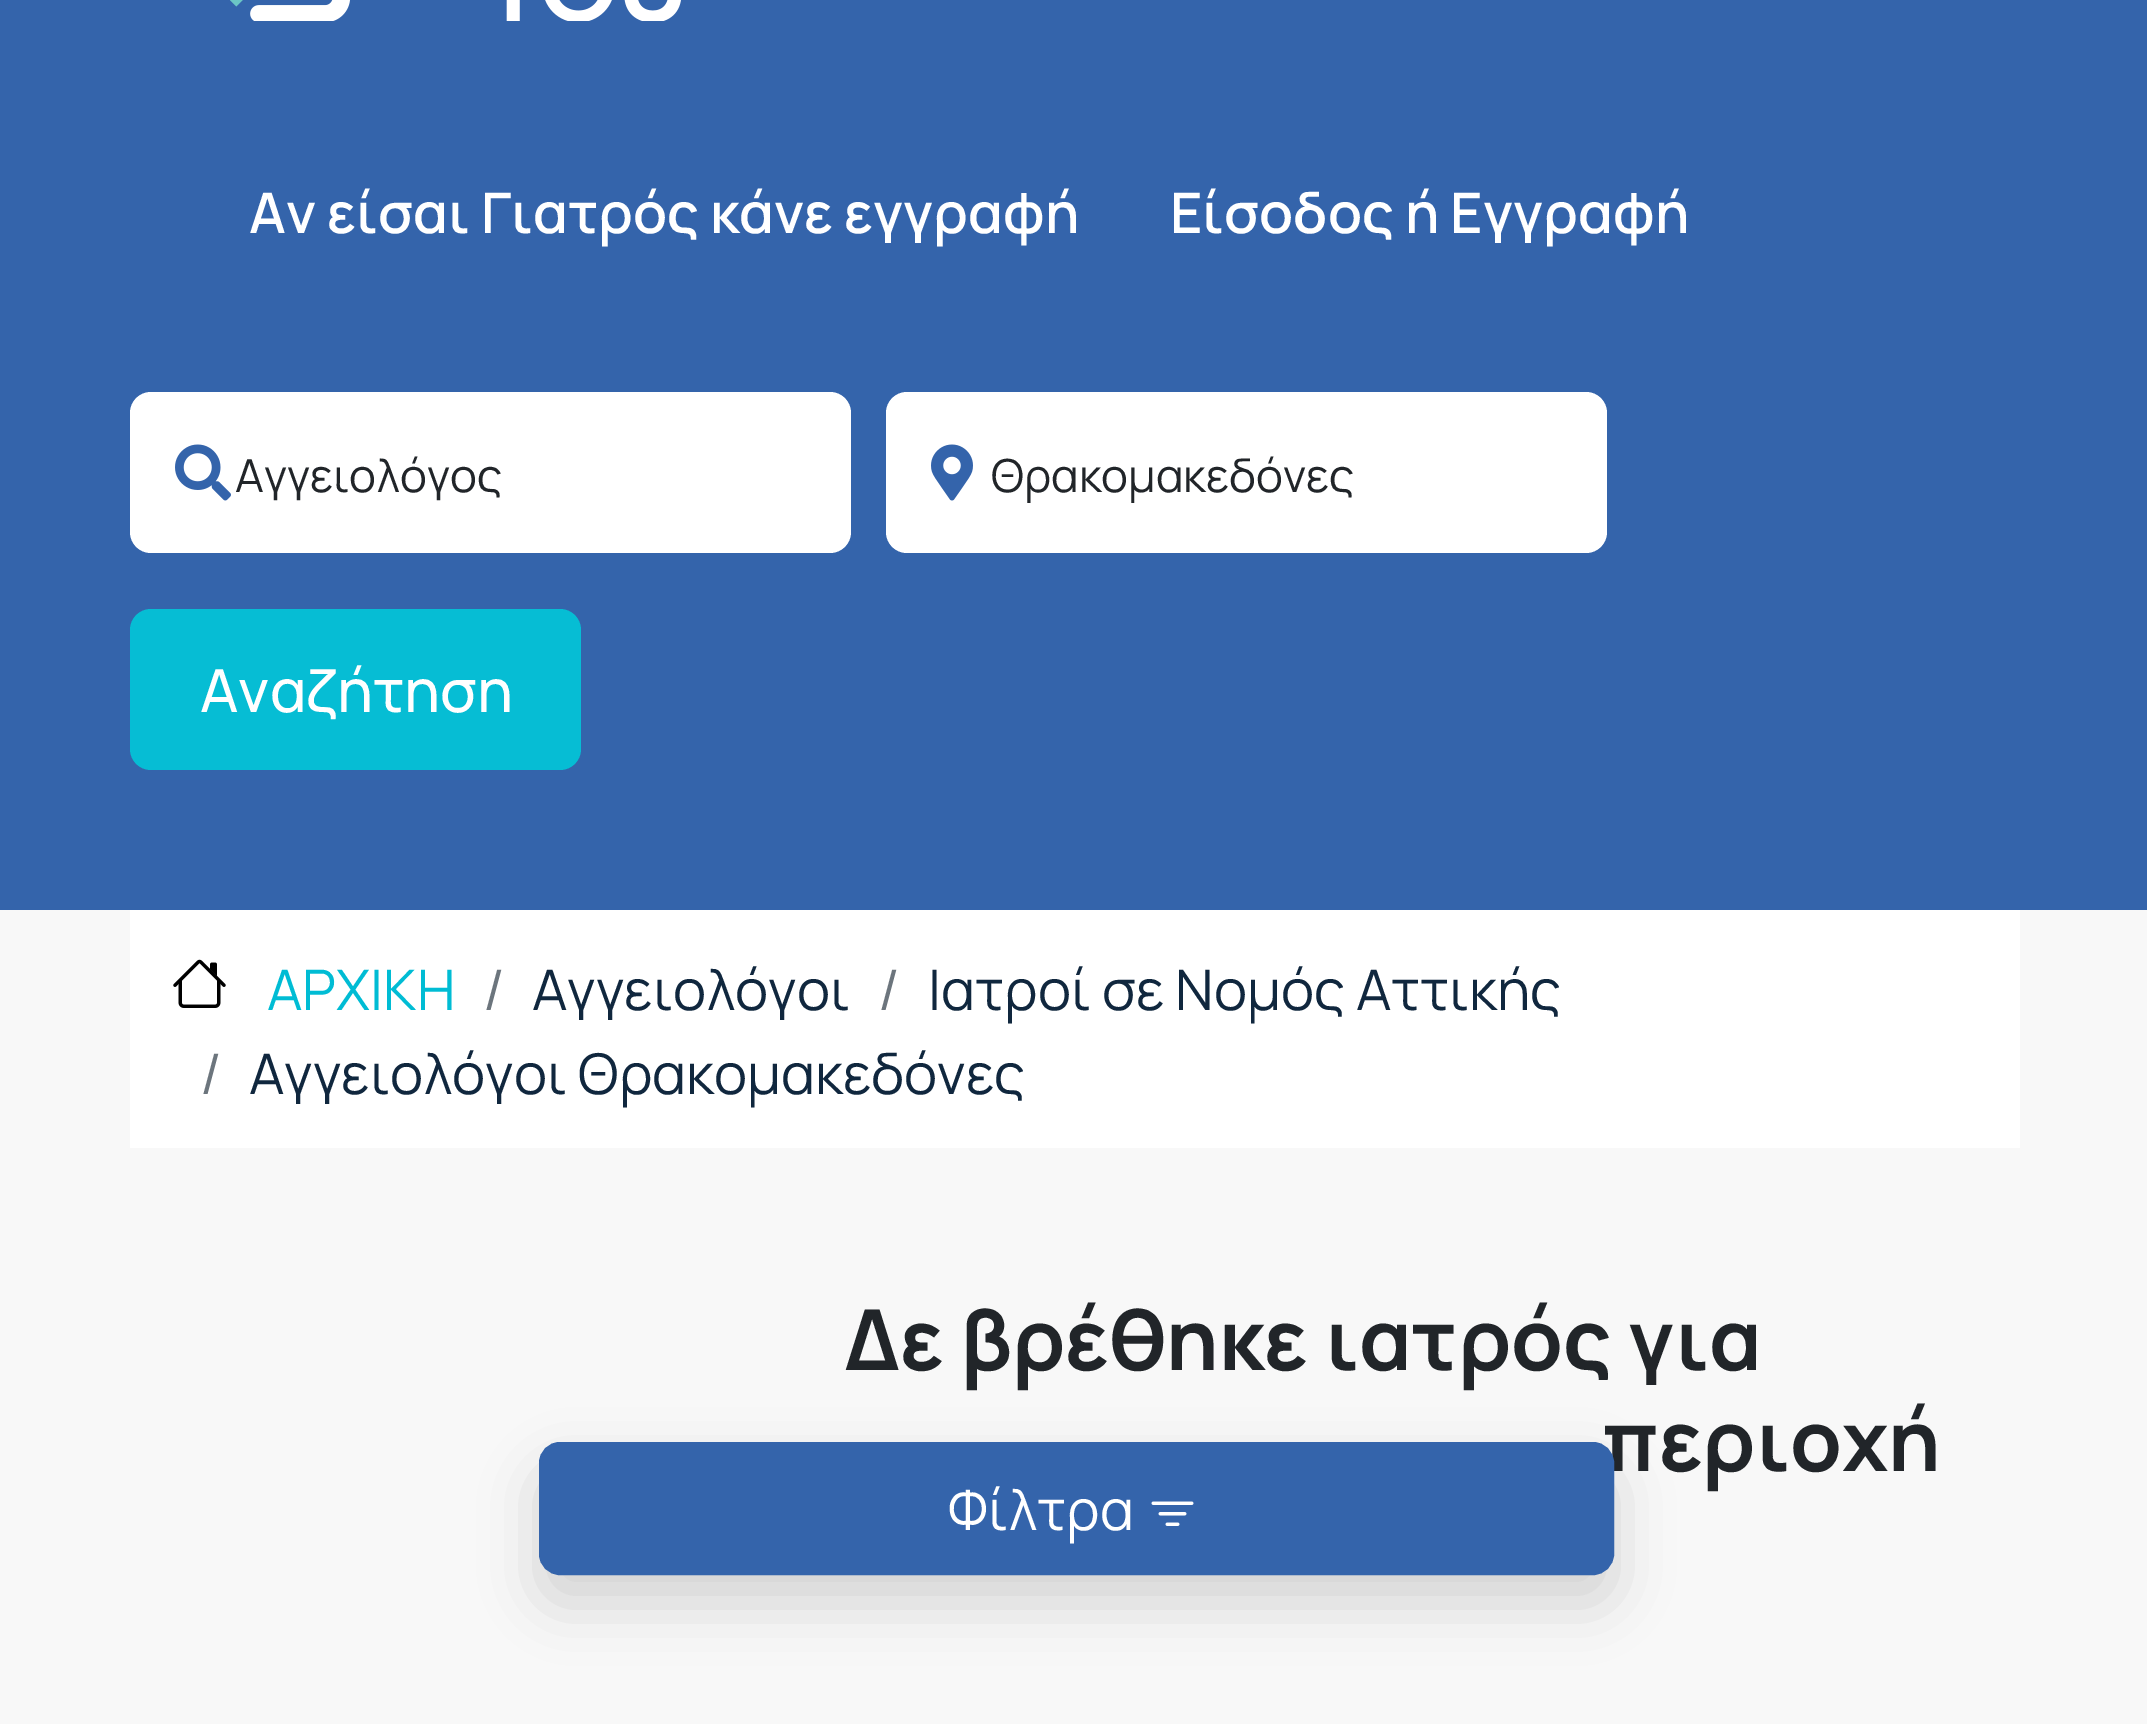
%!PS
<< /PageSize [2147 1724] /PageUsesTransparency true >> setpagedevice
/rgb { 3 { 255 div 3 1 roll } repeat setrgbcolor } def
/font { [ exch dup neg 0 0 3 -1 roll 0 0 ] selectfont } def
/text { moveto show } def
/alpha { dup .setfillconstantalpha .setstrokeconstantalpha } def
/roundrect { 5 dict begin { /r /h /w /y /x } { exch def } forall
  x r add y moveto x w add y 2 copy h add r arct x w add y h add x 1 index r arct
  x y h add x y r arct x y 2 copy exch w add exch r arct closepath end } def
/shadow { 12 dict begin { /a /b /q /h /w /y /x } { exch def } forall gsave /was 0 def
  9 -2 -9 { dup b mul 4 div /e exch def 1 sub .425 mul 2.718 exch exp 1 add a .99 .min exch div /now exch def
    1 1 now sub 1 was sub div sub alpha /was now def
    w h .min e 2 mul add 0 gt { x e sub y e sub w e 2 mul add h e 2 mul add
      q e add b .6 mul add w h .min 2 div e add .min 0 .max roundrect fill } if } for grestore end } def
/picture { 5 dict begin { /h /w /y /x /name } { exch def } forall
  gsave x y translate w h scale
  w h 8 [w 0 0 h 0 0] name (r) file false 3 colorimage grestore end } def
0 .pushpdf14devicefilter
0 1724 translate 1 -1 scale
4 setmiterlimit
52 100 171 rgb
0 0 2147 1724 rectfill
(img_01.rgb) 230 0 451 21 picture
255 255 255 rgb
130 392 721 161 21 roundrect fill
(img_02.rgb) 175 444 56 57 picture
886 392 721 161 21 roundrect fill
(img_03.rgb) 931 444 42 57 picture
6 189 212 rgb
130 609 451 161 21 roundrect fill
248 248 248 rgb
0 910 2147 814 rectfill
255 255 255 rgb
130 910 1890 238 rectfill
(img_04.rgb) 173 959 53 49 picture
0 0 0 rgb
539 1470 1075 133 21 28 0.15 shadow
/Manrope-SemiBold 56 font
255 255 255 rgb
(Aν είσαι Γιατρός κάνε εγγραφή) 249 233 text
(Είσοδος ή Εγγραφή) 1170 233 text
/Manrope-Regular 45.5 font
33 37 41 rgb
(Αγγειολόγος) 235 492 text
(Θρακομακεδόνες) 991 492 text
/Manrope-Medium 59.5 font
255 255 255 rgb
(Αναζήτηση) 200 712 text
/Manrope-Regular 56 font
0 188 212 rgb
(ΑΡΧΙΚΗ) 267 1010 text
108 117 125 rgb
(/) 483 1010 text
16 39 62 rgb
(Αγγειολόγοι) 532 1010 text
108 117 125 rgb
(/) 878 1010 text
16 39 62 rgb
(Ιατροί σε Νομός Αττικής) 928 1010 text
108 117 125 rgb
(/) 200 1094 text
16 39 62 rgb
(Αγγειολόγοι Θρακομακεδόνες) 249 1094 text
/Manrope-Bold 84 font
33 37 41 rgb
(Δε βρέθηκε ιατρός για) 844 1370 text
(περιοχή) 1602 1471 text
52 100 171 rgb
541 1444 1071 129 19 roundrect gsave fill grestore
4 setlinewidth
stroke
/Manrope-Regular 56 font
255 255 255 rgb
(Φίλτρα) 948 1530 text
(img_05.rgb) 1151 1501 43 25 picture
.poppdf14devicefilter showpage
